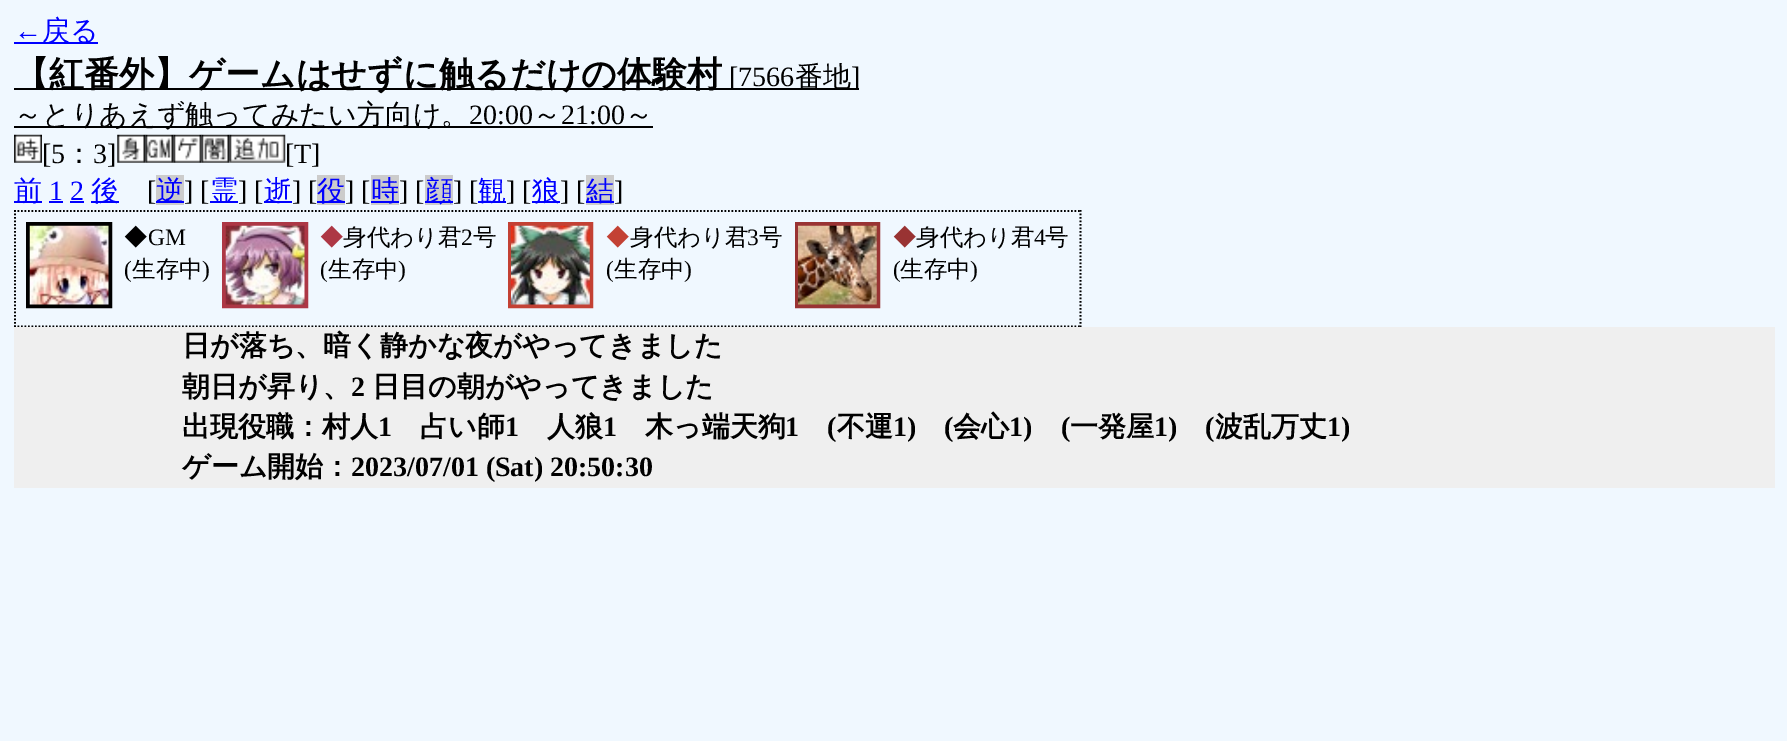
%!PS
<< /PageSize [1787 741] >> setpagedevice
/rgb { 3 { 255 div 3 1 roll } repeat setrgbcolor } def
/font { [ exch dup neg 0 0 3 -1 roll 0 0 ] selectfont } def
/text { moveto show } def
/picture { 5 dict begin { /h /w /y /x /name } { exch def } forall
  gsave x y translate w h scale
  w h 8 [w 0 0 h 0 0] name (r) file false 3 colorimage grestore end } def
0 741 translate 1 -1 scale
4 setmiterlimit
240 248 255 rgb
0 0 1787 741 rectfill
0 0 255 rgb
14 42 84 2 rectfill
0 0 0 rgb
14 88 845 2 rectfill
14 126 639 2 rectfill
(img_01.rgb) 14 134 28 29 picture
(img_02.rgb) 117 134 29 29 picture
(img_03.rgb) 145 134 29 29 picture
(img_04.rgb) 173 134 29 29 picture
(img_05.rgb) 201 134 29 29 picture
(img_06.rgb) 229 134 57 29 picture
0 0 255 rgb
14 201 28 2 rectfill
49 201 14 2 rectfill
91 201 28 2 rectfill
204 204 204 rgb
156 175 28 30 rectfill
0 0 255 rgb
156 201 28 2 rectfill
210 201 28 2 rectfill
264 201 28 2 rectfill
204 204 204 rgb
317 175 28 30 rectfill
0 0 255 rgb
317 201 28 2 rectfill
204 204 204 rgb
371 175 28 30 rectfill
0 0 255 rgb
371 201 28 2 rectfill
204 204 204 rgb
425 175 28 30 rectfill
0 0 255 rgb
425 201 28 2 rectfill
478 201 28 2 rectfill
532 201 28 2 rectfill
204 204 204 rgb
586 175 28 30 rectfill
0 0 255 rgb
586 201 28 2 rectfill
70 201 14 2 rectfill
0 0 0 rgb
1.8 setlinewidth
[1.75 1.75] 0 setdash
14 211 moveto 1067.5 0 rlineto stroke
1080.5 210 moveto 0 117 rlineto stroke
14 326.5 moveto 1067.5 0 rlineto stroke
15 210 moveto 0 117 rlineto stroke
4 setlinewidth
[] 0 setdash
28 224 82 82 rectstroke
(img_07.rgb) 29 225 80 80 picture
173 55 69 rgb
224 224 82 82 rectstroke
(img_08.rgb) 225 225 80 80 picture
195 65 52 rgb
510 224 81 82 rectstroke
(img_09.rgb) 511 225 79 80 picture
153 51 51 rgb
797 224 81 82 rectstroke
(img_10.rgb) 798 225 79 80 picture
239 239 239 rgb
14 327 1761 161 rectfill
/LiberationSerif-Regular 28 font
0 0 255 rgb
(←) 14 40 text
/WenQuanYiZenHei-Medium 28 font
(戻る) 42 40 text
/WenQuanYiZenHei-Bold 35 font
0 0 0 rgb
(【紅番外】ゲームはせずに触るだけの体験村) 14 86 text
/LiberationSerif-Regular 28 font
([7566) 729 86 text
/WenQuanYiZenHei-Medium 28 font
(番地) 795 86 text
/LiberationSerif-Regular 28 font
(]) 851 86 text
/WenQuanYiZenHei-Medium 28 font
(～とりあえず触ってみたい方向け。) 14 124 text
/LiberationSerif-Regular 28 font
(20:00) 469 124 text
/WenQuanYiZenHei-Medium 28 font
(～) 533 124 text
/LiberationSerif-Regular 28 font
(21:00) 561 124 text
/WenQuanYiZenHei-Medium 28 font
(～) 625 124 text
/LiberationSerif-Regular 28 font
([5) 42 163 text
/WenQuanYiZenHei-Medium 28 font
(：) 65 163 text
/LiberationSerif-Regular 28 font
(3]) 93 163 text
([T]) 285 163 text
/WenQuanYiZenHei-Medium 28 font
0 0 255 rgb
(前) 14 200 text
/LiberationSerif-Regular 28 font
(1 2) 49 200 text
/WenQuanYiZenHei-Medium 28 font
(後) 91 200 text
/LiberationSerif-Regular 28 font
0 0 0 rgb
([) 147 200 text
/WenQuanYiZenHei-Medium 28 font
0 0 255 rgb
(逆) 156 200 text
/LiberationSerif-Regular 28 font
0 0 0 rgb
(] [) 184 200 text
/WenQuanYiZenHei-Medium 28 font
0 0 255 rgb
(霊) 210 200 text
/LiberationSerif-Regular 28 font
0 0 0 rgb
(] [) 238 200 text
/WenQuanYiZenHei-Medium 28 font
0 0 255 rgb
(逝) 264 200 text
/LiberationSerif-Regular 28 font
0 0 0 rgb
(] [) 292 200 text
/WenQuanYiZenHei-Medium 28 font
0 0 255 rgb
(役) 317 200 text
/LiberationSerif-Regular 28 font
0 0 0 rgb
(] [) 345 200 text
/WenQuanYiZenHei-Medium 28 font
0 0 255 rgb
(時) 371 200 text
/LiberationSerif-Regular 28 font
0 0 0 rgb
(] [) 399 200 text
/WenQuanYiZenHei-Medium 28 font
0 0 255 rgb
(顔) 425 200 text
/LiberationSerif-Regular 28 font
0 0 0 rgb
(] [) 453 200 text
/WenQuanYiZenHei-Medium 28 font
0 0 255 rgb
(観) 478 200 text
/LiberationSerif-Regular 28 font
0 0 0 rgb
(] [) 506 200 text
/WenQuanYiZenHei-Medium 28 font
0 0 255 rgb
(狼) 532 200 text
/LiberationSerif-Regular 28 font
0 0 0 rgb
(] [) 560 200 text
/WenQuanYiZenHei-Medium 28 font
0 0 255 rgb
(結) 586 200 text
/LiberationSerif-Regular 28 font
0 0 0 rgb
(]) 614 200 text
/WenQuanYiZenHei-Medium 23.5 font
(◆) 124 245 text
/LiberationSerif-Regular 23.5 font
(GM) 148 245 text
(\() 124 277 text
/WenQuanYiZenHei-Medium 23.5 font
(生存中) 132 277 text
/LiberationSerif-Regular 23.5 font
(\)) 202 277 text
/WenQuanYiZenHei-Medium 23.5 font
173 55 69 rgb
(◆) 320 245 text
0 0 0 rgb
(身代わり君) 343 245 text
/LiberationSerif-Regular 23.5 font
(2) 461 245 text
/WenQuanYiZenHei-Medium 23.5 font
(号) 473 245 text
/LiberationSerif-Regular 23.5 font
(\() 320 277 text
/WenQuanYiZenHei-Medium 23.5 font
(生存中) 328 277 text
/LiberationSerif-Regular 23.5 font
(\)) 398 277 text
/WenQuanYiZenHei-Medium 23.5 font
195 65 52 rgb
(◆) 606 245 text
0 0 0 rgb
(身代わり君) 630 245 text
/LiberationSerif-Regular 23.5 font
(3) 747 245 text
/WenQuanYiZenHei-Medium 23.5 font
(号) 759 245 text
/LiberationSerif-Regular 23.5 font
(\() 606 277 text
/WenQuanYiZenHei-Medium 23.5 font
(生存中) 614 277 text
/LiberationSerif-Regular 23.5 font
(\)) 684 277 text
/WenQuanYiZenHei-Medium 23.5 font
153 51 51 rgb
(◆) 893 245 text
0 0 0 rgb
(身代わり君) 916 245 text
/LiberationSerif-Regular 23.5 font
(4) 1034 245 text
/WenQuanYiZenHei-Medium 23.5 font
(号) 1045 245 text
/LiberationSerif-Regular 23.5 font
(\() 893 277 text
/WenQuanYiZenHei-Medium 23.5 font
(生存中) 900 277 text
/LiberationSerif-Regular 23.5 font
(\)) 970 277 text
/WenQuanYiZenHei-Bold 28 font
(日が落ち、暗く静かな夜がやってきました) 182 355 text
(朝日が昇り、) 182 396 text
/LiberationSerif-Bold 28 font
(2) 351 396 text
/WenQuanYiZenHei-Bold 28 font
(日目の朝がやってきました) 372 396 text
(出現役職：村人) 182 436 text
/LiberationSerif-Bold 28 font
(1) 378 436 text
/WenQuanYiZenHei-Bold 28 font
(占い師) 420 436 text
/LiberationSerif-Bold 28 font
(1) 505 436 text
/WenQuanYiZenHei-Bold 28 font
(人狼) 547 436 text
/LiberationSerif-Bold 28 font
(1) 603 436 text
/WenQuanYiZenHei-Bold 28 font
(木っ端天狗) 645 436 text
/LiberationSerif-Bold 28 font
(1) 785 436 text
(\() 827 436 text
/WenQuanYiZenHei-Bold 28 font
(不運) 837 436 text
/LiberationSerif-Bold 28 font
(1\)) 893 436 text
(\() 944 436 text
/WenQuanYiZenHei-Bold 28 font
(会心) 953 436 text
/LiberationSerif-Bold 28 font
(1\)) 1009 436 text
(\() 1061 436 text
/WenQuanYiZenHei-Bold 28 font
(一発屋) 1070 436 text
/LiberationSerif-Bold 28 font
(1\)) 1154 436 text
(\() 1205 436 text
/WenQuanYiZenHei-Bold 28 font
(波乱万丈) 1215 436 text
/LiberationSerif-Bold 28 font
(1\)) 1327 436 text
/WenQuanYiZenHei-Bold 28 font
(ゲーム開始：) 182 476 text
/LiberationSerif-Bold 28 font
(2023/07/01 \(Sat\) 20:50:30) 351 476 text
showpage
